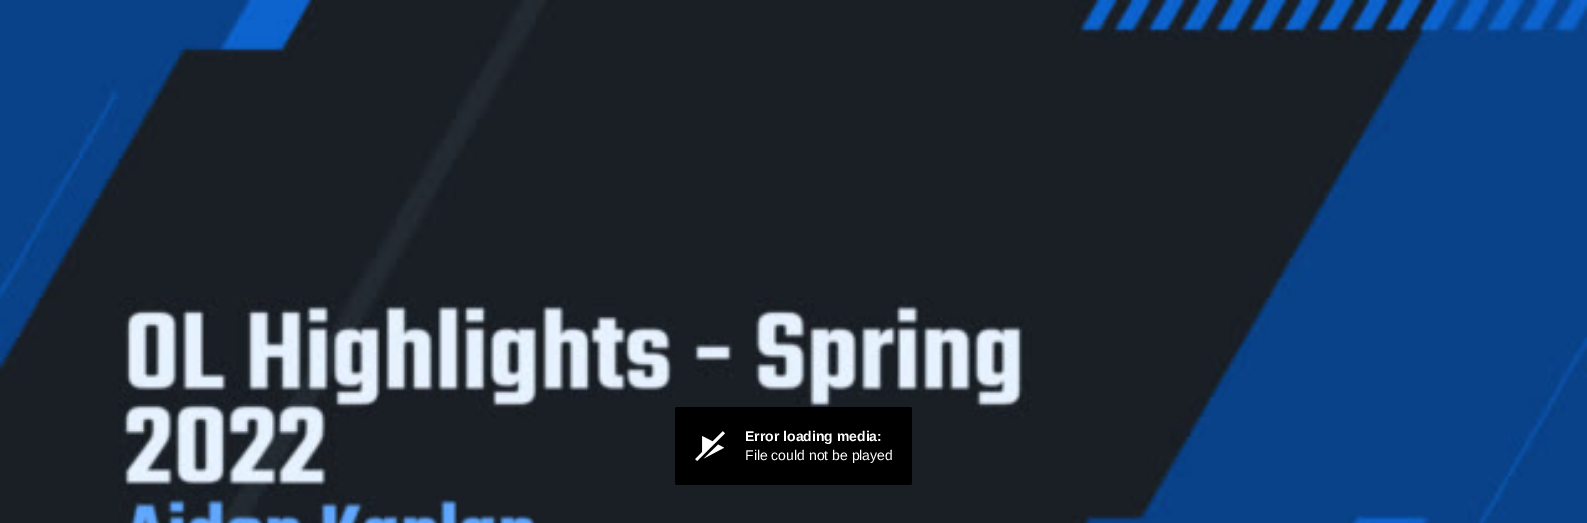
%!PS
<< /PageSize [1587 523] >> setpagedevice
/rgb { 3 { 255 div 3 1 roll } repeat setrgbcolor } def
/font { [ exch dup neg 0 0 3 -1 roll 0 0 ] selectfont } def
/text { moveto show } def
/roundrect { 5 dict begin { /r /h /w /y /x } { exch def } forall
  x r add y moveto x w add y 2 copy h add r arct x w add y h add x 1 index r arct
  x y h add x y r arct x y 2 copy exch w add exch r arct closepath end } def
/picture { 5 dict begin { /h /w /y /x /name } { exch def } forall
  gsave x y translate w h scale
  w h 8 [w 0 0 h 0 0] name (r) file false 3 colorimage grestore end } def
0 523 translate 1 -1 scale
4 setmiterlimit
255 255 255 rgb
0 0 1587 523 rectfill
(img_01.rgb) 0 0 1587 523 picture
0 0 0 rgb
675 407 237 78 2 roundrect fill
(img_02.rgb) 695 431 30 30 picture
/LiberationSans-Bold 14 font
255 255 255 rgb
(Error loading media:) 745 441 text
/LiberationSans-Regular 14 font
(File could not be played) 745 460 text
showpage
